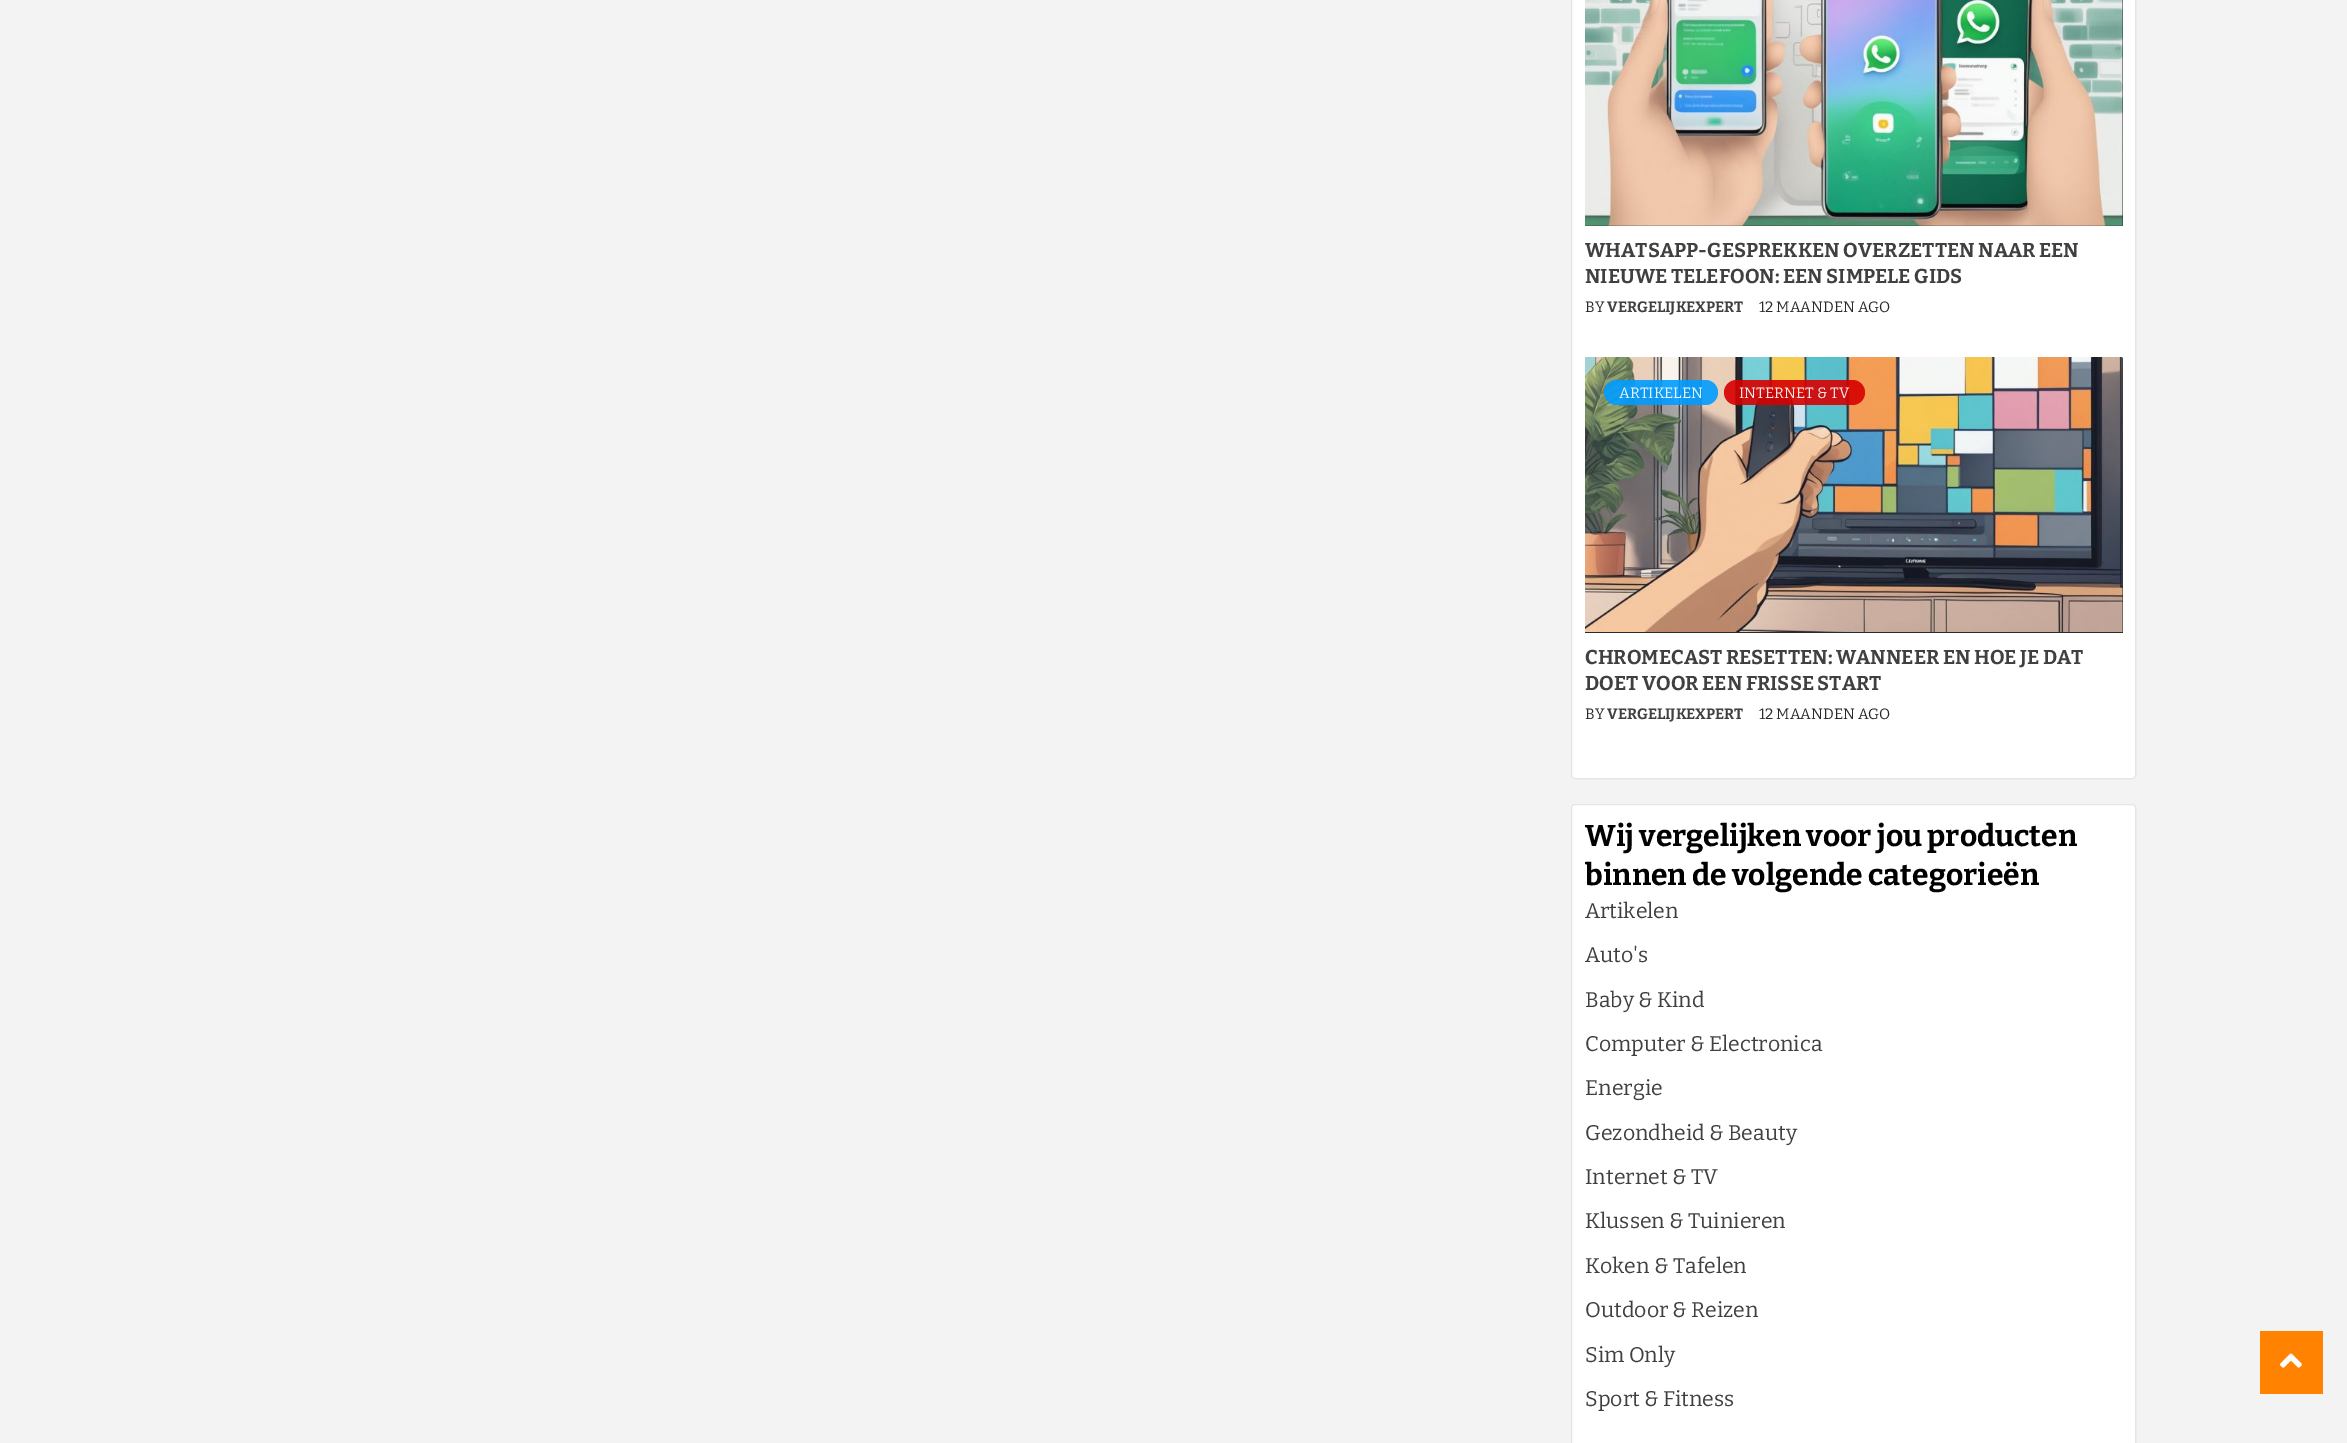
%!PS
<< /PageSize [2347 1443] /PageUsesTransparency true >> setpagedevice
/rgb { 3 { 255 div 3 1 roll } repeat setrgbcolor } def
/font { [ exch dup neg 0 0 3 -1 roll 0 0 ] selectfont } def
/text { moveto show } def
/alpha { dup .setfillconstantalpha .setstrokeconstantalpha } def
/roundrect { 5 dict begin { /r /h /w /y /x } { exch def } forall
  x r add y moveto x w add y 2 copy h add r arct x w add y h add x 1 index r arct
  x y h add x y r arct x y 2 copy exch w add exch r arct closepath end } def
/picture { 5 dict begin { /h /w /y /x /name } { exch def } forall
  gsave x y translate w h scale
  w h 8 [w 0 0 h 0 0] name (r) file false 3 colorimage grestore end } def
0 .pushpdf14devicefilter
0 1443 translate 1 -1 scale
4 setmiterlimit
243 243 243 rgb
0 0 2347 1443 rectfill
255 255 255 rgb
1571 -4 565 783 4 roundrect fill
0.1 alpha
0 1 1 rgb
1571.5 -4.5 564 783 3.5 roundrect stroke
1 alpha
42 42 42 rgb
1585 0 538 226 rectfill
(img_01.rgb) 1585 0 538 226 picture
1585 358 538 275 rectfill
(img_02.rgb) 1585 357 538 275 picture
0.9 alpha
0 156 255 rgb
1604 380 114 25 12.5 roundrect fill
214 0 0 rgb
1724 380 141 25 12.5 roundrect fill
1 alpha
255 255 255 rgb
1571 804 565 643 4 roundrect fill
0.1 alpha
0 1 1 rgb
1571.5 804.5 564 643 3.5 roundrect stroke
1 alpha
255 130 1 rgb
2260 1331 63 63 rectfill
(img_03.rgb) 2280 1353 22 15 picture
/Bitter-Bold 20 font
64 64 64 rgb
(WHATSAPP-GESPREKKEN OVERZETTEN NAAR EEN) 1585 257 text
(NIEUWE TELEFOON: EEN SIMPELE GIDS) 1585 283 text
/Bitter-Regular 15 font
42 42 42 rgb
(BY) 1585 312 text
/Bitter-Bold 15 font
64 64 64 rgb
(VERGELIJKEXPERT) 1607 312 text
/Bitter-Regular 15 font
42 42 42 rgb
(12 MAANDEN AGO) 1759 312 text
231 245 254 rgb
(ARTIKELEN) 1619 398 text
250 231 231 rgb
(INTERNET & TV) 1739 398 text
/Bitter-Bold 20 font
64 64 64 rgb
(CHROMECAST RESETTEN: WANNEER EN HOE JE DAT) 1585 664 text
(DOET VOOR EEN FRISSE START) 1585 690 text
/Bitter-Regular 15 font
42 42 42 rgb
(BY) 1585 719 text
/Bitter-Bold 15 font
64 64 64 rgb
(VERGELIJKEXPERT) 1607 719 text
/Bitter-Regular 15 font
42 42 42 rgb
(12 MAANDEN AGO) 1759 719 text
/Bitter-Bold 30 font
0 0 0 rgb
(Wij vergelijken voor jou producten) 1585 846 text
(binnen de volgende categorieën) 1585 885 text
/Bitter-Regular 21.25 font
64 64 64 rgb
(Artikelen) 1585 918 text
(Auto's) 1585 962 text
(Baby & Kind) 1585 1007 text
(Computer & Electronica) 1585 1051 text
(Energie) 1585 1095 text
(Gezondheid & Beauty) 1585 1140 text
(Internet & TV) 1585 1184 text
(Klussen & Tuinieren) 1585 1228 text
(Koken & Tafelen) 1585 1273 text
(Outdoor & Reizen) 1585 1317 text
(Sim Only) 1585 1362 text
(Sport & Fitness) 1585 1406 text
.poppdf14devicefilter showpage
